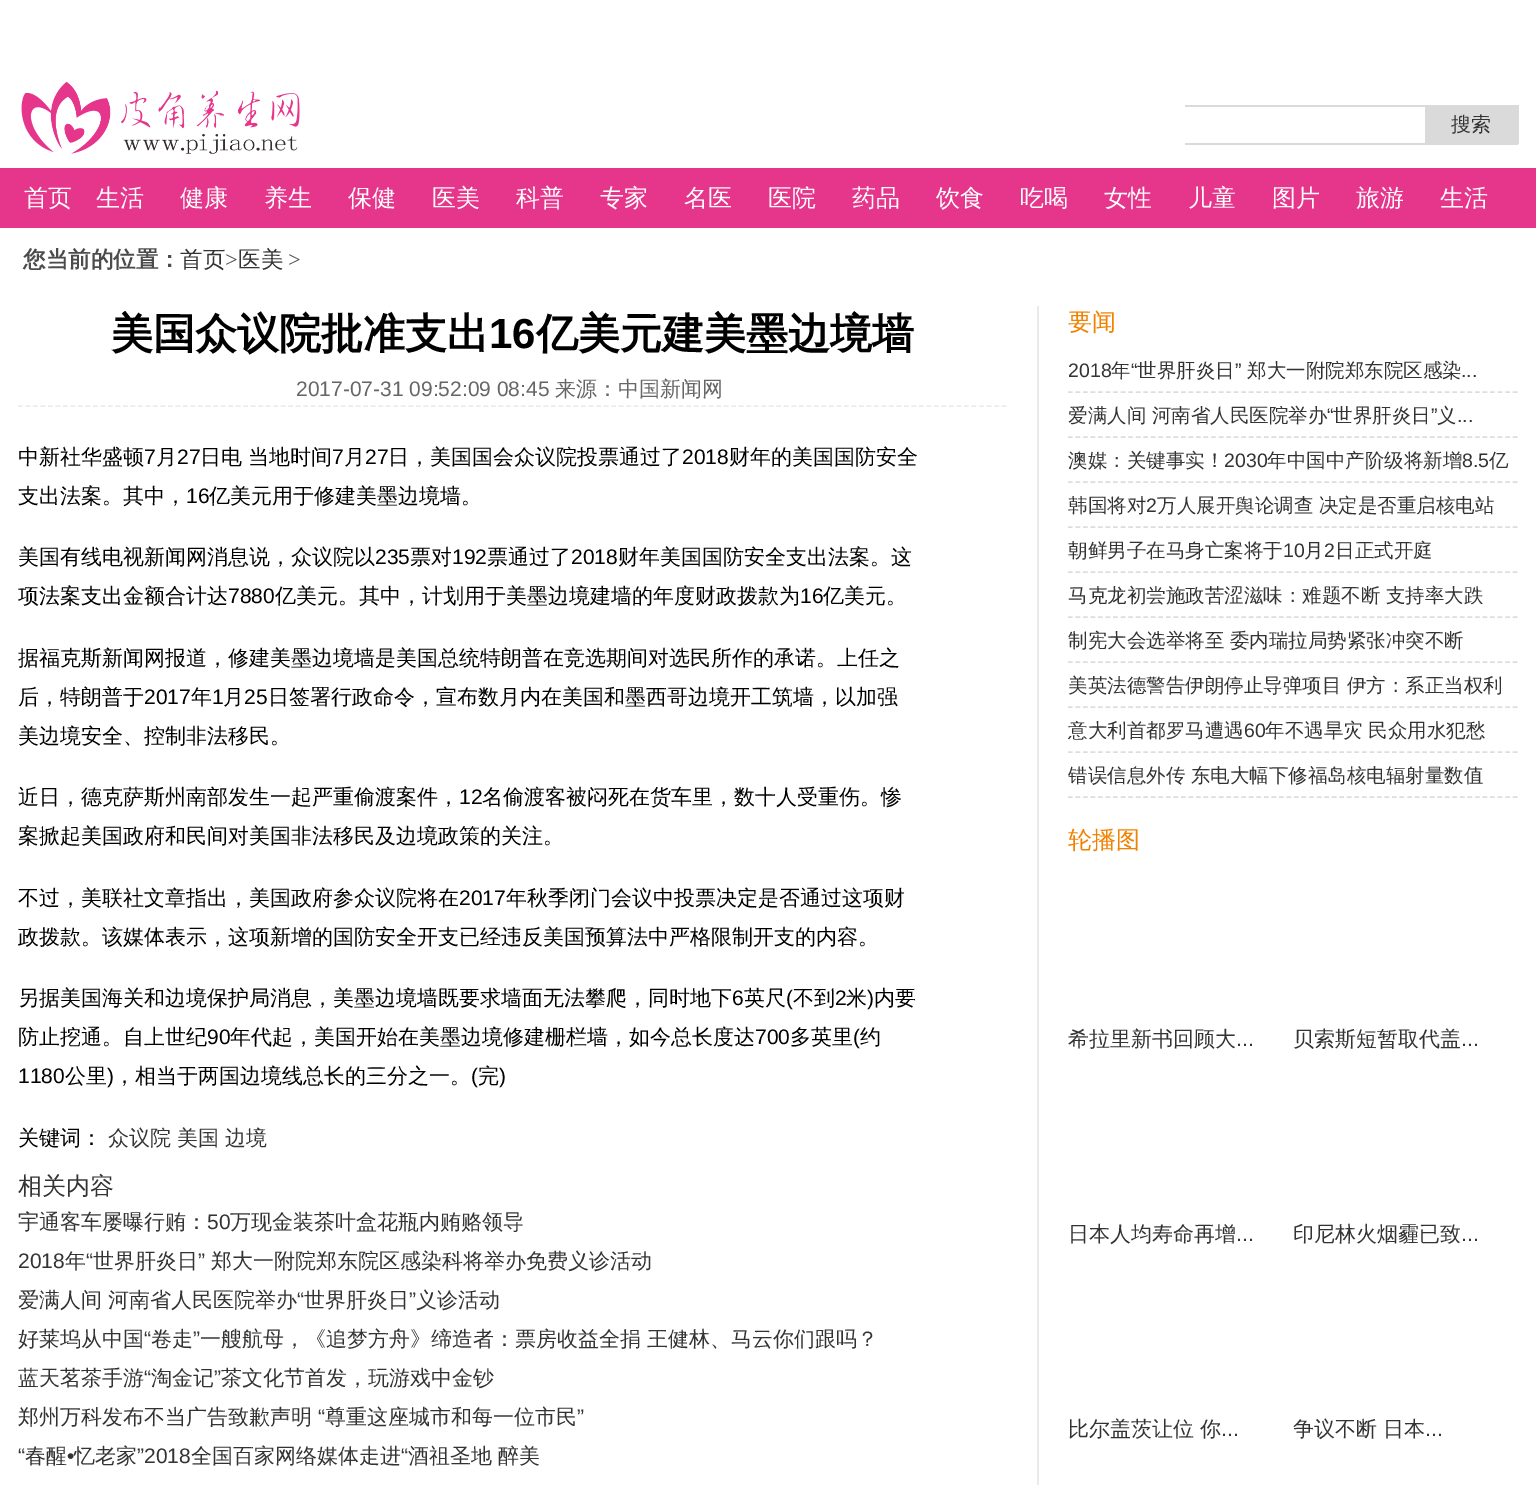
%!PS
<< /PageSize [1536 1485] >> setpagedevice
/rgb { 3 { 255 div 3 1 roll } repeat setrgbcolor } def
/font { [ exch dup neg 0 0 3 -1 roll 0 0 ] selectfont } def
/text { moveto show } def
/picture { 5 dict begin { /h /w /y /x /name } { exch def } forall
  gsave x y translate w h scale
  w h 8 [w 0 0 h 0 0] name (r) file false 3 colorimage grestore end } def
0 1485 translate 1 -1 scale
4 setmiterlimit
255 255 255 rgb
0 0 1536 1485 rectfill
(img_01.rgb) 21 81 279 73 picture
218 218 218 rgb
1185 105 240 2 rectfill
1185 143 240 2 rectfill
1425 105 92 38 rectfill
1517 105 2 39 rectfill
1425 143 93 2 rectfill
230 54 140 rgb
0 168 1536 60 rectfill
234 234 234 rgb
1037 306 2 1179 rectfill
235 235 235 rgb
1.5 setlinewidth
[4.5 3.01] 0 setdash
18 406 moveto 988.5 0 rlineto stroke
221 221 221 rgb
[4.5 3.04] 0 setdash
1068 392 moveto 450 0 rlineto stroke
1068 437 moveto 450 0 rlineto stroke
1068 482 moveto 450 0 rlineto stroke
1068 527 moveto 450 0 rlineto stroke
1068 572 moveto 450 0 rlineto stroke
1068 617 moveto 450 0 rlineto stroke
1068 662 moveto 450 0 rlineto stroke
1068 707 moveto 450 0 rlineto stroke
1068 752 moveto 450 0 rlineto stroke
1068 797 moveto 450 0 rlineto stroke
/WenQuanYiZenHei-Medium 20 font
51 51 51 rgb
(搜索) 1451 131 text
/WenQuanYiZenHei-Medium 24 font
255 255 255 rgb
(首页) 24 206 text
(生活) 96 206 text
(健康) 180 206 text
(养生) 264 206 text
(保健) 348 206 text
(医美) 432 206 text
(科普) 516 206 text
(专家) 600 206 text
(名医) 684 206 text
(医院) 768 206 text
(药品) 852 206 text
(饮食) 936 206 text
(吃喝) 1020 206 text
(女性) 1104 206 text
(儿童) 1188 206 text
(图片) 1272 206 text
(旅游) 1356 206 text
(生活) 1440 206 text
/WenQuanYiZenHei-Bold 22.5 font
76 76 76 rgb
(您当前的位置：) 23 267 text
/WenQuanYiZenHei-Medium 22.5 font
51 51 51 rgb
(首页) 180 267 text
/LiberationSerif-Regular 22.5 font
76 76 76 rgb
(>) 225 267 text
/WenQuanYiZenHei-Medium 22.5 font
51 51 51 rgb
(医美) 238 267 text
/LiberationSerif-Regular 22.5 font
76 76 76 rgb
(>) 288 267 text
/WenQuanYiZenHei-Bold 42 font
0 0 0 rgb
(美国众议院批准支出) 111 348 text
/LiberationSans-Bold 42 font
(16) 489 348 text
/WenQuanYiZenHei-Bold 42 font
(亿美元建美墨边境墙) 536 348 text
/LiberationSans-Regular 21 font
102 102 102 rgb
(2017-07-31 09:52:09 08:45) 296 396 text
/WenQuanYiZenHei-Medium 21 font
(来源：中国新闻网) 555 396 text
0 0 0 rgb
(中新社华盛顿) 18 464 text
/LiberationSans-Regular 21 font
(7) 144 464 text
/WenQuanYiZenHei-Medium 21 font
(月) 156 464 text
/LiberationSans-Regular 21 font
(27) 177 464 text
/WenQuanYiZenHei-Medium 21 font
(日电 当地时间) 200 464 text
/LiberationSans-Regular 21 font
(7) 332 464 text
/WenQuanYiZenHei-Medium 21 font
(月) 344 464 text
/LiberationSans-Regular 21 font
(27) 365 464 text
/WenQuanYiZenHei-Medium 21 font
(日，美国国会众议院投票通过了) 388 464 text
/LiberationSans-Regular 21 font
(2018) 682 464 text
/WenQuanYiZenHei-Medium 21 font
(财年的美国国防安全) 729 464 text
(支出法案。其中，) 18 503 text
/LiberationSans-Regular 21 font
(16) 186 503 text
/WenQuanYiZenHei-Medium 21 font
(亿美元用于修建美墨边境墙。) 209 503 text
(美国有线电视新闻网消息说，众议院以) 18 564 text
/LiberationSans-Regular 21 font
(235) 375 564 text
/WenQuanYiZenHei-Medium 21 font
(票对) 410 564 text
/LiberationSans-Regular 21 font
(192) 452 564 text
/WenQuanYiZenHei-Medium 21 font
(票通过了) 487 564 text
/LiberationSans-Regular 21 font
(2018) 571 564 text
/WenQuanYiZenHei-Medium 21 font
(财年美国国防安全支出法案。这) 618 564 text
(项法案支出金额合计达) 18 603 text
/LiberationSans-Regular 21 font
(7880) 228 603 text
/WenQuanYiZenHei-Medium 21 font
(亿美元。其中，计划用于美墨边境建墙的年度财政拨款为) 275 603 text
/LiberationSans-Regular 21 font
(16) 800 603 text
/WenQuanYiZenHei-Medium 21 font
(亿美元。) 823 603 text
(据福克斯新闻网报道，修建美墨边境墙是美国总统特朗普在竞选期间对选民所作的承诺。上任之) 18 665 text
(后，特朗普于) 18 704 text
/LiberationSans-Regular 21 font
(2017) 144 704 text
/WenQuanYiZenHei-Medium 21 font
(年) 191 704 text
/LiberationSans-Regular 21 font
(1) 212 704 text
/WenQuanYiZenHei-Medium 21 font
(月) 223 704 text
/LiberationSans-Regular 21 font
(25) 244 704 text
/WenQuanYiZenHei-Medium 21 font
(日签署行政命令，宣布数月内在美国和墨西哥边境开工筑墙，以加强) 268 704 text
(美边境安全、控制非法移民。) 18 743 text
(近日，德克萨斯州南部发生一起严重偷渡案件，) 18 804 text
/LiberationSans-Regular 21 font
(12) 459 804 text
/WenQuanYiZenHei-Medium 21 font
(名偷渡客被闷死在货车里，数十人受重伤。惨) 482 804 text
(案掀起美国政府和民间对美国非法移民及边境政策的关注。) 18 843 text
(不过，美联社文章指出，美国政府参众议院将在) 18 905 text
/LiberationSans-Regular 21 font
(2017) 459 905 text
/WenQuanYiZenHei-Medium 21 font
(年秋季闭门会议中投票决定是否通过这项财) 506 905 text
(政拨款。该媒体表示，这项新增的国防安全开支已经违反美国预算法中严格限制开支的内容。) 18 944 text
(另据美国海关和边境保护局消息，美墨边境墙既要求墙面无法攀爬，同时地下) 18 1005 text
/LiberationSans-Regular 21 font
(6) 732 1005 text
/WenQuanYiZenHei-Medium 21 font
(英尺) 744 1005 text
/LiberationSans-Regular 21 font
(\() 786 1005 text
/WenQuanYiZenHei-Medium 21 font
(不到) 793 1005 text
/LiberationSans-Regular 21 font
(2) 835 1005 text
/WenQuanYiZenHei-Medium 21 font
(米) 846 1005 text
/LiberationSans-Regular 21 font
(\)) 867 1005 text
/WenQuanYiZenHei-Medium 21 font
(内要) 874 1005 text
(防止挖通。自上世纪) 18 1044 text
/LiberationSans-Regular 21 font
(90) 207 1044 text
/WenQuanYiZenHei-Medium 21 font
(年代起，美国开始在美墨边境修建栅栏墙，如今总长度达) 230 1044 text
/LiberationSans-Regular 21 font
(700) 755 1044 text
/WenQuanYiZenHei-Medium 21 font
(多英里) 790 1044 text
/LiberationSans-Regular 21 font
(\() 853 1044 text
/WenQuanYiZenHei-Medium 21 font
(约) 860 1044 text
/LiberationSans-Regular 21 font
(1180) 18 1083 text
/WenQuanYiZenHei-Medium 21 font
(公里) 65 1083 text
/LiberationSans-Regular 21 font
(\)) 107 1083 text
/WenQuanYiZenHei-Medium 21 font
(，相当于两国边境线总长的三分之一。) 114 1083 text
/LiberationSans-Regular 21 font
(\() 471 1083 text
/WenQuanYiZenHei-Medium 21 font
(完) 478 1083 text
/LiberationSans-Regular 21 font
(\)) 499 1083 text
/WenQuanYiZenHei-Medium 21 font
(关键词：) 18 1145 text
51 51 51 rgb
(众议院) 108 1145 text
(美国) 177 1145 text
(边境) 225 1145 text
/WenQuanYiZenHei-Medium 24 font
(相关内容) 18 1194 text
/WenQuanYiZenHei-Medium 21 font
(宇通客车屡曝行贿：) 18 1229 text
/LiberationSans-Regular 21 font
(50) 207 1229 text
/WenQuanYiZenHei-Medium 21 font
(万现金装茶叶盒花瓶内贿赂领导) 230 1229 text
/LiberationSans-Regular 21 font
(2018) 18 1268 text
/WenQuanYiZenHei-Medium 21 font
(年) 65 1268 text
/LiberationSans-Regular 21 font
(“) 86 1268 text
/WenQuanYiZenHei-Medium 21 font
(世界肝炎日) 93 1268 text
/LiberationSans-Regular 21 font
(”) 198 1268 text
/WenQuanYiZenHei-Medium 21 font
(郑大一附院郑东院区感染科将举办免费义诊活动) 211 1268 text
(爱满人间 河南省人民医院举办) 18 1307 text
/LiberationSans-Regular 21 font
(“) 297 1307 text
/WenQuanYiZenHei-Medium 21 font
(世界肝炎日) 304 1307 text
/LiberationSans-Regular 21 font
(”) 409 1307 text
/WenQuanYiZenHei-Medium 21 font
(义诊活动) 416 1307 text
(好莱坞从中国) 18 1346 text
/LiberationSans-Regular 21 font
(“) 144 1346 text
/WenQuanYiZenHei-Medium 21 font
(卷走) 151 1346 text
/LiberationSans-Regular 21 font
(”) 193 1346 text
/WenQuanYiZenHei-Medium 21 font
(一艘航母，《追梦方舟》缔造者：票房收益全捐 王健林、马云你们跟吗？) 200 1346 text
(蓝天茗茶手游) 18 1385 text
/LiberationSans-Regular 21 font
(“) 144 1385 text
/WenQuanYiZenHei-Medium 21 font
(淘金记) 151 1385 text
/LiberationSans-Regular 21 font
(”) 214 1385 text
/WenQuanYiZenHei-Medium 21 font
(茶文化节首发，玩游戏中金钞) 221 1385 text
(郑州万科发布不当广告致歉声明) 18 1424 text
/LiberationSans-Regular 21 font
(“) 318 1424 text
/WenQuanYiZenHei-Medium 21 font
(尊重这座城市和每一位市民) 325 1424 text
/LiberationSans-Regular 21 font
(”) 577 1424 text
(“) 18 1463 text
/WenQuanYiZenHei-Medium 21 font
(春醒) 25 1463 text
/LiberationSans-Regular 21 font
(”2018) 137 1463 text
/WenQuanYiZenHei-Medium 21 font
(全国百家网络媒体走进) 191 1463 text
/LiberationSans-Regular 21 font
(“) 401 1463 text
/WenQuanYiZenHei-Medium 21 font
(酒祖圣地 醉美) 408 1463 text
/LiberationSans-Regular 21 font
(•) 67 1463 text
/WenQuanYiZenHei-Medium 21 font
(忆老家) 74 1463 text
/WenQuanYiZenHei-Medium 24 font
240 130 0 rgb
(要闻) 1068 330 text
/LiberationSans-Regular 19.5 font
51 51 51 rgb
(2018) 1068 377 text
/WenQuanYiZenHei-Medium 19.5 font
(年) 1111 377 text
/LiberationSans-Regular 19.5 font
(“) 1131 377 text
/WenQuanYiZenHei-Medium 19.5 font
(世界肝炎日) 1137 377 text
/LiberationSans-Regular 19.5 font
(”) 1235 377 text
/WenQuanYiZenHei-Medium 19.5 font
(郑大一附院郑东院区感染) 1247 377 text
/LiberationSans-Regular 19.5 font
(...) 1461 377 text
/WenQuanYiZenHei-Medium 19.5 font
(爱满人间 河南省人民医院举办) 1068 422 text
/LiberationSans-Regular 19.5 font
(“) 1327 422 text
/WenQuanYiZenHei-Medium 19.5 font
(世界肝炎日) 1333 422 text
/LiberationSans-Regular 19.5 font
(”) 1431 422 text
/WenQuanYiZenHei-Medium 19.5 font
(义) 1437 422 text
/LiberationSans-Regular 19.5 font
(...) 1457 422 text
/WenQuanYiZenHei-Medium 19.5 font
(澳媒：关键事实！) 1068 467 text
/LiberationSans-Regular 19.5 font
(2030) 1224 467 text
/WenQuanYiZenHei-Medium 19.5 font
(年中国中产阶级将新增) 1267 467 text
/LiberationSans-Regular 19.5 font
(8.5) 1462 467 text
/WenQuanYiZenHei-Medium 19.5 font
(亿) 1489 467 text
(韩国将对) 1068 512 text
/LiberationSans-Regular 19.5 font
(2) 1146 512 text
/WenQuanYiZenHei-Medium 19.5 font
(万人展开舆论调查 决定是否重启核电站) 1157 512 text
(朝鲜男子在马身亡案将于) 1068 557 text
/LiberationSans-Regular 19.5 font
(10) 1283 557 text
/WenQuanYiZenHei-Medium 19.5 font
(月) 1304 557 text
/LiberationSans-Regular 19.5 font
(2) 1324 557 text
/WenQuanYiZenHei-Medium 19.5 font
(日正式开庭) 1335 557 text
(马克龙初尝施政苦涩滋味：难题不断 支持率大跌) 1068 602 text
(制宪大会选举将至 委内瑞拉局势紧张冲突不断) 1068 647 text
(美英法德警告伊朗停止导弹项目 伊方：系正当权利) 1068 692 text
(意大利首都罗马遭遇) 1068 737 text
/LiberationSans-Regular 19.5 font
(60) 1244 737 text
/WenQuanYiZenHei-Medium 19.5 font
(年不遇旱灾 民众用水犯愁) 1265 737 text
(错误信息外传 东电大幅下修福岛核电辐射量数值) 1068 782 text
/WenQuanYiZenHei-Medium 24 font
240 130 0 rgb
(轮播图) 1068 848 text
/WenQuanYiZenHei-Medium 21 font
51 51 51 rgb
(希拉里新书回顾大) 1068 1046 text
/LiberationSans-Regular 21 font
(...) 1236 1046 text
/WenQuanYiZenHei-Medium 21 font
(贝索斯短暂取代盖) 1293 1046 text
/LiberationSans-Regular 21 font
(...) 1461 1046 text
/WenQuanYiZenHei-Medium 21 font
(日本人均寿命再增) 1068 1241 text
/LiberationSans-Regular 21 font
(...) 1236 1241 text
/WenQuanYiZenHei-Medium 21 font
(印尼林火烟霾已致) 1293 1241 text
/LiberationSans-Regular 21 font
(...) 1461 1241 text
/WenQuanYiZenHei-Medium 21 font
(比尔盖茨让位 你) 1068 1436 text
/LiberationSans-Regular 21 font
(...) 1221 1436 text
/WenQuanYiZenHei-Medium 21 font
(争议不断) 1293 1436 text
(日本) 1383 1436 text
/LiberationSans-Regular 21 font
(...) 1425 1436 text
showpage
